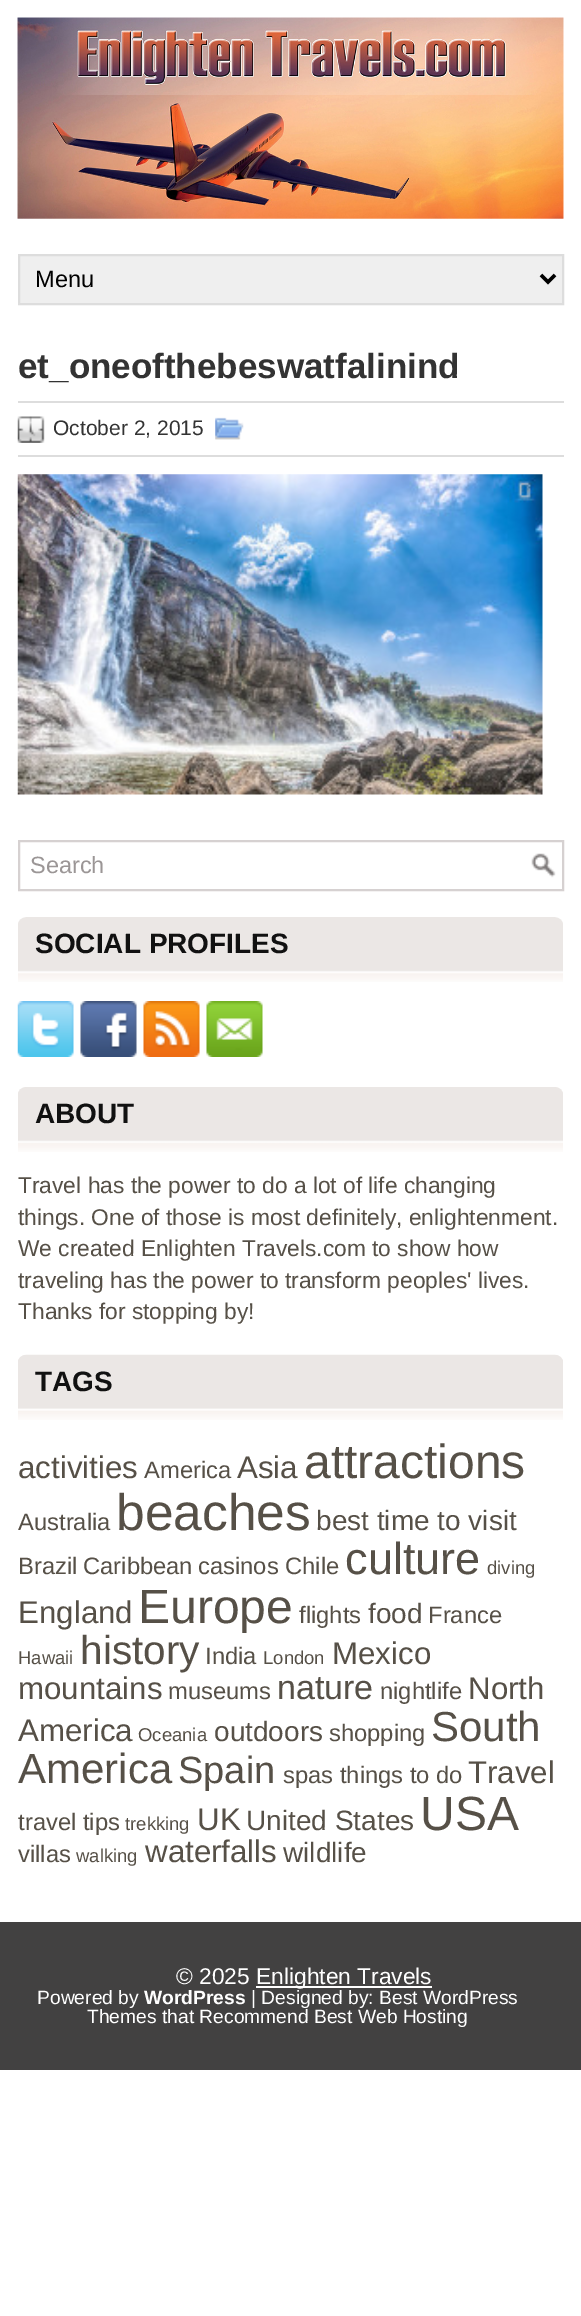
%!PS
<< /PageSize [581 2316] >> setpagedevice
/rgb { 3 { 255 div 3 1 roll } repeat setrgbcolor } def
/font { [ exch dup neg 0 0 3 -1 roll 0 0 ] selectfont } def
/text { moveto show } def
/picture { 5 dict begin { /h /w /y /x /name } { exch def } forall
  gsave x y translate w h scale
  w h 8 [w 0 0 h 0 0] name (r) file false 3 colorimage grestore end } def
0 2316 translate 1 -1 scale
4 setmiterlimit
255 255 255 rgb
0 0 581 2316 rectfill
(img_01.rgb) 17 17 547 202 picture
239 239 239 rgb
19 255 moveto 544 0 rlineto 0 49 rlineto -544 0 rlineto closepath gsave fill grestore
221 221 221 rgb
2 setlinewidth
stroke
0 0 0 rgb
3.5 setlinewidth
541 275 moveto 7 7 rlineto 7 -7 rlineto stroke
221 221 221 rgb
18 401 546 2 rectfill
18 455 546 2 rectfill
(img_02.rgb) 17 416 28 27 picture
(img_03.rgb) 215 417 29 23 picture
(img_04.rgb) 17 474 526 321 picture
(img_05.rgb) 531 853 25 25 picture
214 209 209 rgb
2 setlinewidth
19 841 544 49 rectstroke
(img_06.rgb) 18 917 545 65 picture
(img_07.rgb) 17 1001 57 56 picture
(img_08.rgb) 80 1001 57 56 picture
(img_09.rgb) 143 1001 57 56 picture
(img_10.rgb) 206 1001 57 56 picture
(img_11.rgb) 18 1087 545 65 picture
(img_12.rgb) 18 1354 545 66 picture
66 65 65 rgb
0 1922 581 148 rectfill
255 255 255 rgb
256 1986 176 2 rectfill
/LiberationSans-Regular 23.5 font
0 0 0 rgb
(Menu) 35 287 text
/LiberationSans-Bold 35 font
51 51 51 rgb
(et_oneofthebeswatfalinind) 18 378 text
/LiberationSans-Regular 21 font
(October 2, 2015) 53 435 text
/LiberationSans-Regular 23.5 font
155 150 150 rgb
(Search) 30 873 text
/LiberationSans-Bold 28 font
17 17 17 rgb
(SOCIAL PROFILES) 35 953 text
(ABOUT) 35 1123 text
/LiberationSans-Regular 22.75 font
86 80 71 rgb
(Travel has the power to do a lot of life changing) 18 1193 text
(things. One of those is most definitely, enlightenment.) 18 1225 text
(We created Enlighten Travels.com to show how) 18 1256 text
(traveling has the power to transform peoples' lives.) 18 1288 text
(Thanks for stopping by!) 18 1319 text
/LiberationSans-Bold 28 font
17 17 17 rgb
(TAGS) 35 1391 text
/LiberationSans-Regular 31.25 font
86 80 71 rgb
(activities) 18 1478 text
/LiberationSans-Regular 23.75 font
(America) 144 1478 text
/LiberationSans-Regular 31.25 font
(Asia) 237 1478 text
/LiberationSans-Regular 48 font
(attractions) 304 1478 text
/LiberationSans-Regular 23.75 font
(Australia) 18 1530 text
/LiberationSans-Regular 51.5 font
(beaches) 116 1530 text
/LiberationSans-Regular 28 font
(best time to visit) 316 1530 text
/LiberationSans-Regular 23.75 font
(Brazil) 18 1574 text
(Caribbean) 83 1574 text
(casinos) 198 1574 text
(Chile) 285 1574 text
/LiberationSans-Regular 45 font
(culture) 345 1574 text
/LiberationSans-Regular 18.5 font
(diving) 487 1574 text
/LiberationSans-Regular 31.25 font
(England) 18 1623 text
/LiberationSans-Regular 48 font
(Europe) 138 1623 text
/LiberationSans-Regular 23.75 font
(flights) 299 1623 text
/LiberationSans-Regular 28 font
(food) 368 1623 text
/LiberationSans-Regular 23.75 font
(France) 428 1623 text
/LiberationSans-Regular 18.5 font
(Hawaii) 18 1664 text
/LiberationSans-Regular 40.5 font
(history) 80 1664 text
/LiberationSans-Regular 23.75 font
(India) 205 1664 text
/LiberationSans-Regular 18.5 font
(London) 263 1664 text
/LiberationSans-Regular 31.25 font
(Mexico) 332 1664 text
(mountains) 18 1699 text
/LiberationSans-Regular 23.75 font
(museums) 168 1699 text
/LiberationSans-Regular 34 font
(nature) 277 1699 text
/LiberationSans-Regular 23.75 font
(nightlife) 380 1699 text
/LiberationSans-Regular 31.25 font
(North) 468 1699 text
(America) 18 1741 text
/LiberationSans-Regular 18.5 font
(Oceania) 138 1741 text
/LiberationSans-Regular 28 font
(outdoors) 214 1741 text
/LiberationSans-Regular 23.75 font
(shopping) 329 1741 text
/LiberationSans-Regular 42 font
(South) 431 1741 text
(America) 18 1783 text
/LiberationSans-Regular 38 font
(Spain) 178 1783 text
/LiberationSans-Regular 23.75 font
(spas things to do) 283 1783 text
/LiberationSans-Regular 31.25 font
(Travel) 468 1783 text
/LiberationSans-Regular 23.75 font
(travel tips) 18 1830 text
/LiberationSans-Regular 18.5 font
(trekking) 125 1830 text
/LiberationSans-Regular 31.25 font
(UK) 197 1830 text
/LiberationSans-Regular 28 font
(United States) 246 1830 text
/LiberationSans-Regular 48 font
(USA) 420 1830 text
/LiberationSans-Regular 23.75 font
(villas) 18 1862 text
/LiberationSans-Regular 18.5 font
(walking) 76 1862 text
/LiberationSans-Regular 31.25 font
(waterfalls) 145 1862 text
/LiberationSans-Regular 28 font
(wildlife) 283 1862 text
/LiberationSans-Regular 22.75 font
255 255 255 rgb
(© 2025) 176 1984 text
(Enlighten Travels) 256 1984 text
/LiberationSans-Regular 19.25 font
(Powered by) 37 2004 text
/LiberationSans-Bold 19.25 font
(WordPress) 144 2004 text
/LiberationSans-Regular 19.25 font
(| Designed by: Best WordPress) 251 2004 text
(Themes that Recommend Best Web Hosting) 87 2023 text
showpage
